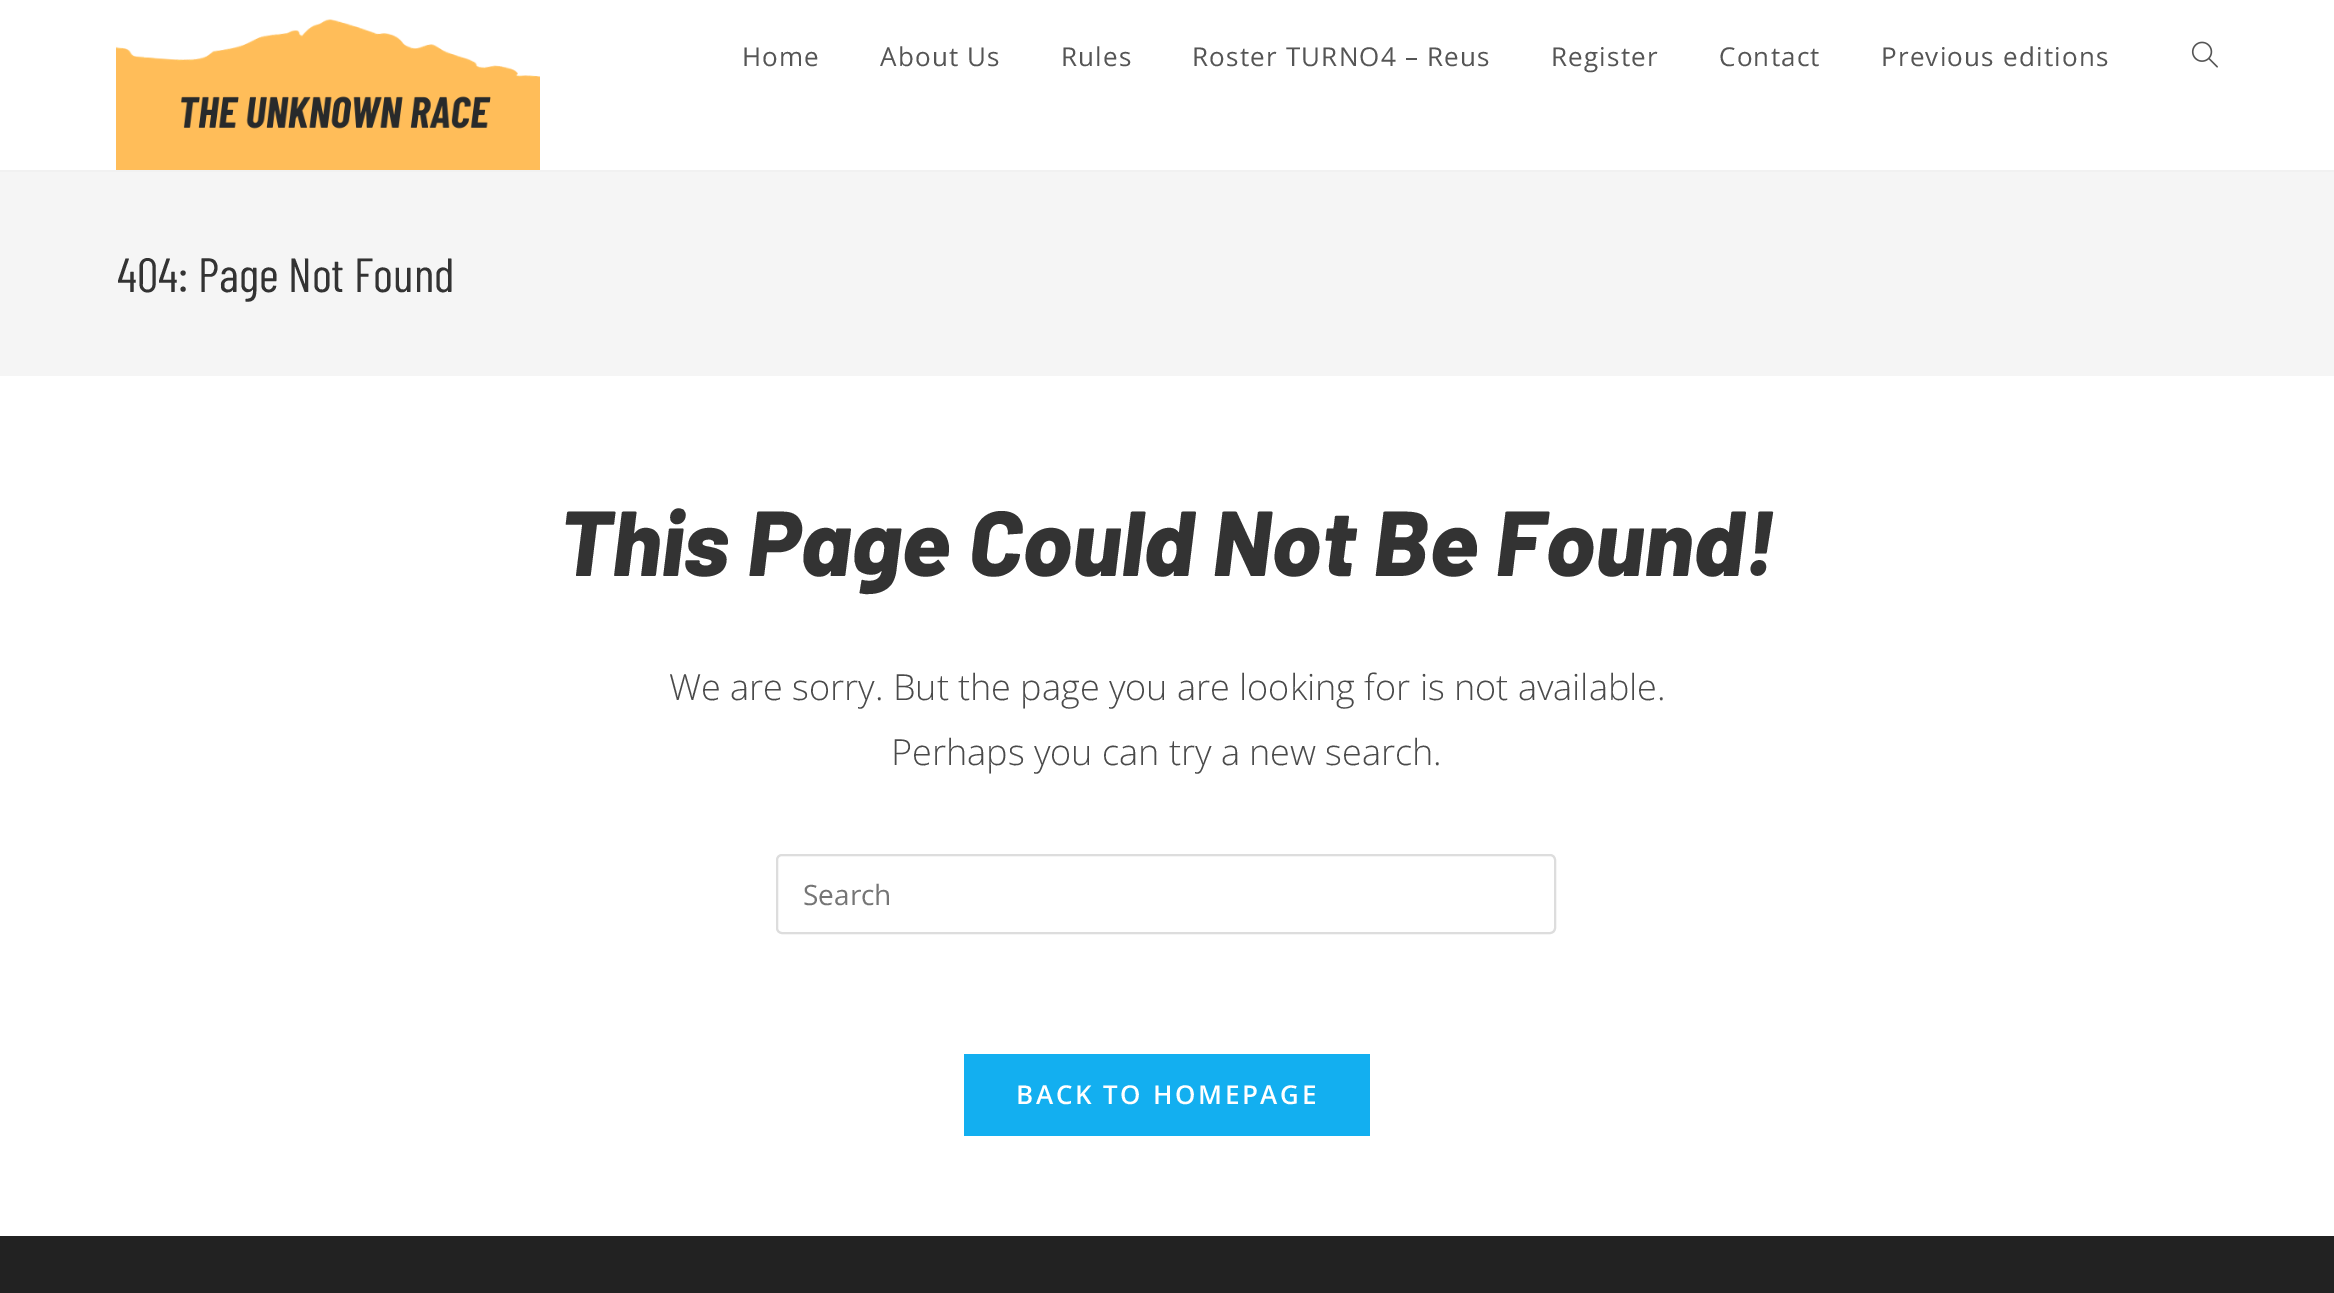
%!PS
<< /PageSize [2334 1293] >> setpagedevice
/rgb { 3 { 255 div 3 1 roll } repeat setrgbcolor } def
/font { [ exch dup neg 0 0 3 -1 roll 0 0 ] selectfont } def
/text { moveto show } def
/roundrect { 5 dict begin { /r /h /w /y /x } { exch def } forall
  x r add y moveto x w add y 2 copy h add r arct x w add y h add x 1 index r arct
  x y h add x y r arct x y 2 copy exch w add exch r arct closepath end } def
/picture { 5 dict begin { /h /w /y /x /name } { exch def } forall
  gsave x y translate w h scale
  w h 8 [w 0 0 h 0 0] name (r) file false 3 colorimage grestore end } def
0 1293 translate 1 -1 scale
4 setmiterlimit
255 255 255 rgb
0 0 2334 1293 rectfill
241 241 241 rgb
0 170 2334 2 rectfill
(img_01.rgb) 116 19 424 151 picture
(img_02.rgb) 2191 41 27 27 picture
245 245 245 rgb
0 172 2334 204 rectfill
221 221 221 rgb
2 setlinewidth
777 855 778 78 5 roundrect stroke
19 175 240 rgb
964 1054 406 82 rectfill
34 34 34 rgb
0 1236 2334 57 rectfill
/OpenSans-Regular 26 font
85 85 85 rgb
742 66 moveto 1.2 0 (Home) ashow
880 66 moveto 1.2 0 (About Us) ashow
1061 66 moveto 1.2 0 (Rules) ashow
1192 66 moveto 1.2 0 (Roster TURNO4 – Reus) ashow
1551 66 moveto 1.2 0 (Register) ashow
1719 66 moveto 1.2 0 (Contact) ashow
1881 66 moveto 1.2 0 (Previous editions) ashow
/BarlowCondensed-Regular 48 font
51 51 51 rgb
(404: Page Not Found) 117 292 text
/Barlow-ExtraBoldItalic 92 font
(This Page Could Not Be Found!) 559 576 text
/OpenSans-Light 36 font
74 74 74 rgb
(We are sorry. But the page you are looking for is not available.) 669 700 text
(Perhaps you can try a new search.) 891 765 text
/OpenSans-Regular 28 font
117 117 117 rgb
(Search) 803 905 text
/OpenSans-SemiBold 26 font
255 255 255 rgb
1016 1104 moveto 2.6 0 (BACK TO HOMEPAGE) ashow
showpage
